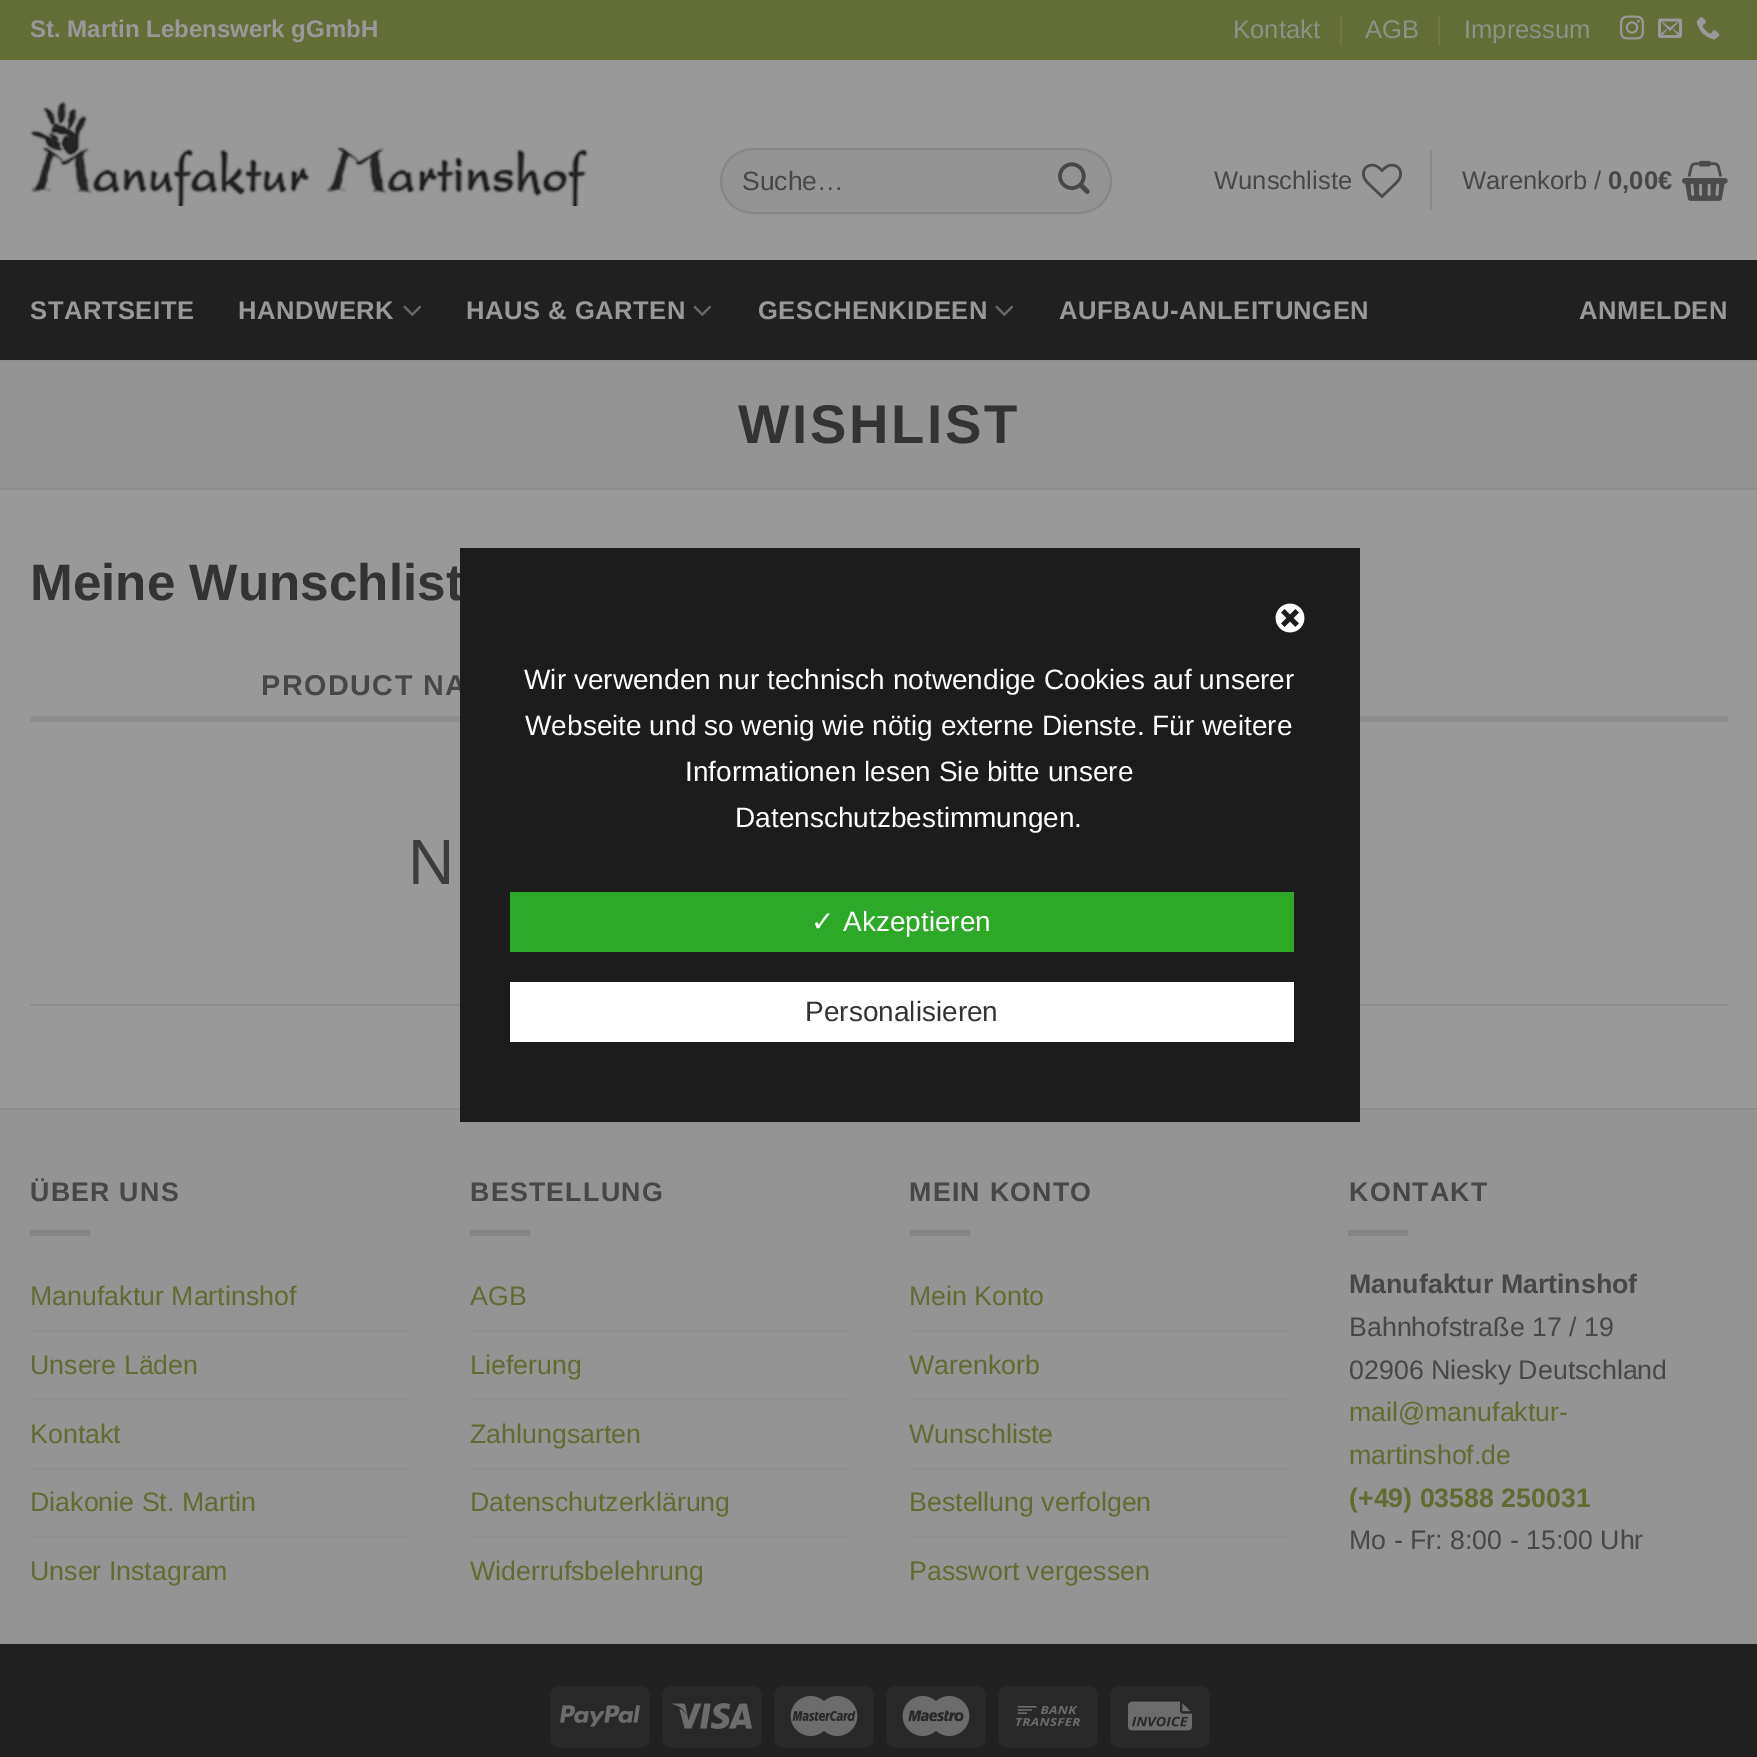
%!PS
<< /PageSize [1757 1757] /PageUsesTransparency true >> setpagedevice
/rgb { 3 { 255 div 3 1 roll } repeat setrgbcolor } def
/font { [ exch dup neg 0 0 3 -1 roll 0 0 ] selectfont } def
/text { moveto show } def
/alpha { dup .setfillconstantalpha .setstrokeconstantalpha } def
/roundrect { 5 dict begin { /r /h /w /y /x } { exch def } forall
  x r add y moveto x w add y 2 copy h add r arct x w add y h add x 1 index r arct
  x y h add x y r arct x y 2 copy exch w add exch r arct closepath end } def
/picture { 5 dict begin { /h /w /y /x /name } { exch def } forall
  gsave x y translate w h scale
  w h 8 [w 0 0 h 0 0] name (r) file false 3 colorimage grestore end } def
0 .pushpdf14devicefilter
0 1757 translate 1 -1 scale
4 setmiterlimit
153 153 153 rgb
0 0 1757 1757 rectfill
99 110 55 rgb
0 0 1757 60 rectfill
110 118 74 rgb
1340 16 2 30 rectfill
1438 16 2 30 rectfill
(img_01.rgb) 1620 15 24 25 picture
(img_02.rgb) 1658 18 24 20 picture
(img_03.rgb) 1696 17 24 23 picture
(img_04.rgb) 30 101 559 105 picture
148 148 148 rgb
720 148 392 66 33 roundrect fill
0.09 alpha
0 0 0 rgb
2 setlinewidth
721 149 390 64 32 roundrect stroke
1 alpha
(img_05.rgb) 1058 162 32 32 picture
(img_06.rgb) 1362 163 40 35 picture
138 138 138 rgb
1430 150 2 60 rectfill
(img_07.rgb) 1682 160 46 41 picture
32 32 32 rgb
0 260 1757 100 rectfill
(img_08.rgb) 403 305 19 11 picture
(img_08.rgb) 693 305 19 11 picture
(img_08.rgb) 995 305 19 11 picture
148 148 148 rgb
0 362 1757 126 rectfill
142 142 142 rgb
0 360 1757 2 rectfill
0 488 1757 2 rectfill
30 716 1698 6 rectfill
30 1004 1698 2 rectfill
148 148 148 rgb
0 1110 1757 534 rectfill
141 141 141 rgb
0 1108 1757 2 rectfill
133 133 133 rgb
30 1230 60 6 rectfill
142 142 142 rgb
30 1330 380 2 rectfill
30 1398 380 2 rectfill
30 1468 380 2 rectfill
30 1536 380 2 rectfill
133 133 133 rgb
470 1230 60 6 rectfill
142 142 142 rgb
470 1330 380 2 rectfill
470 1398 380 2 rectfill
470 1468 380 2 rectfill
470 1536 380 2 rectfill
133 133 133 rgb
910 1230 60 6 rectfill
142 142 142 rgb
910 1330 378 2 rectfill
910 1398 378 2 rectfill
910 1468 378 2 rectfill
910 1536 378 2 rectfill
133 133 133 rgb
1348 1230 60 6 rectfill
32 32 32 rgb
0 1644 1757 113 rectfill
40 40 40 rgb
550 1686 100 62 10 roundrect fill
(img_09.rgb) 560 1705 80 22 picture
662 1686 100 62 10 roundrect fill
(img_10.rgb) 672 1703 80 26 picture
774 1686 100 62 10 roundrect fill
(img_11.rgb) 790 1696 68 40 picture
886 1686 100 62 10 roundrect fill
(img_12.rgb) 902 1696 68 40 picture
998 1686 100 62 10 roundrect fill
(img_13.rgb) 1016 1706 64 20 picture
1110 1686 100 62 10 roundrect fill
(img_14.rgb) 1128 1701 64 30 picture
/LiberationSans-Bold 24 font
153 153 153 rgb
(St. Martin Lebenswerk gGmbH) 30 37 text
/LiberationSans-Regular 25.6 font
142 145 133 rgb
(Kontakt) 1233 38 text
(AGB) 1365 38 text
(Impressum) 1464 38 text
/LiberationSans-Regular 26.5 font
71 71 71 rgb
(Suche…) 742 190 text
/LiberationSans-Regular 25.6 font
(Wunschliste) 1214 189 text
(Warenkorb /) 1462 189 text
/LiberationSans-Bold 25.6 font
(0,00€) 1608 189 text
153 153 153 rgb
30 319 moveto 0.5 0 (STARTSEITE) ashow
238 319 moveto 0.5 0 (HANDWERK) ashow
466 319 moveto 0.5 0 (HAUS & GARTEN) ashow
758 319 moveto 0.5 0 (GESCHENKIDEEN) ashow
1059 319 moveto 0.5 0 (AUFBAU-ANLEITUNGEN) ashow
1579 319 moveto 0.5 0 (ANMELDEN) ashow
/LiberationSans-Bold 54.5 font
51 51 51 rgb
738 443 moveto 2.75 0 (WISHLIST) ashow
/LiberationSans-Bold 51.25 font
(Meine Wunschlist) 30 600 text
/LiberationSans-Bold 28.75 font
71 71 71 rgb
261 695 moveto 1.5 0 (PRODUCT NA) ashow
/LiberationSans-Regular 64 font
61 61 61 rgb
(N) 408 884 text
/LiberationSans-Bold 26.75 font
71 71 71 rgb
30 1201 moveto 1.25 0 (ÜBER UNS) ashow
/LiberationSans-Regular 26.75 font
95 107 49 rgb
(Manufaktur Martinshof) 30 1305 text
(Unsere Läden) 30 1374 text
(Kontakt) 30 1443 text
(Diakonie St. Martin) 30 1511 text
(Unser Instagram) 30 1580 text
/LiberationSans-Bold 26.75 font
71 71 71 rgb
470 1201 moveto 1.25 0 (BESTELLUNG) ashow
/LiberationSans-Regular 26.75 font
95 107 49 rgb
(AGB) 470 1305 text
(Lieferung) 470 1374 text
(Zahlungsarten) 470 1443 text
(Datenschutzerklärung) 470 1511 text
(Widerrufsbelehrung) 470 1580 text
/LiberationSans-Bold 26.75 font
71 71 71 rgb
909 1201 moveto 1.25 0 (MEIN KONTO) ashow
/LiberationSans-Regular 26.75 font
95 107 49 rgb
(Mein Konto) 909 1305 text
(Warenkorb) 909 1374 text
(Wunschliste) 909 1443 text
(Bestellung verfolgen) 909 1511 text
(Passwort vergessen) 909 1580 text
/LiberationSans-Bold 26.75 font
71 71 71 rgb
1349 1201 moveto 1.25 0 (KONTAKT) ashow
(Manufaktur Martinshof) 1349 1293 text
/LiberationSans-Regular 26.75 font
(Bahnhofstraße 17 / 19) 1349 1336 text
(02906 Niesky Deutschland) 1349 1379 text
95 107 49 rgb
(mail@manufaktur-) 1349 1421 text
(martinshof.de) 1349 1464 text
/LiberationSans-Bold 26.75 font
(\(+49\) 03588 250031) 1349 1507 text
/LiberationSans-Regular 26.75 font
71 71 71 rgb
(Mo - Fr: 8:00 - 15:00 Uhr) 1349 1549 text
29 28 28 rgb
460 548 900 574 rectfill
(img_15.rgb) 1275 603 30 30 picture
/LiberationSans-Regular 28 font
255 255 255 rgb
(Wir verwenden nur technisch notwendige Cookies auf unserer) 524 689 text
(Webseite und so wenig wie nötig externe Dienste. Für weitere) 525 735 text
(Informationen lesen Sie bitte unsere) 685 781 text
(Datenschutzbestimmungen.) 735 827 text
44 170 39 rgb
510 892 784 60 rectfill
/DejaVuSans-Regular 28 font
255 255 255 rgb
(✓) 811 931 text
/LiberationSans-Regular 28 font
(Akzeptieren) 843 931 text
510 982 784 60 rectfill
51 51 51 rgb
(Personalisieren) 805 1021 text
.poppdf14devicefilter showpage
